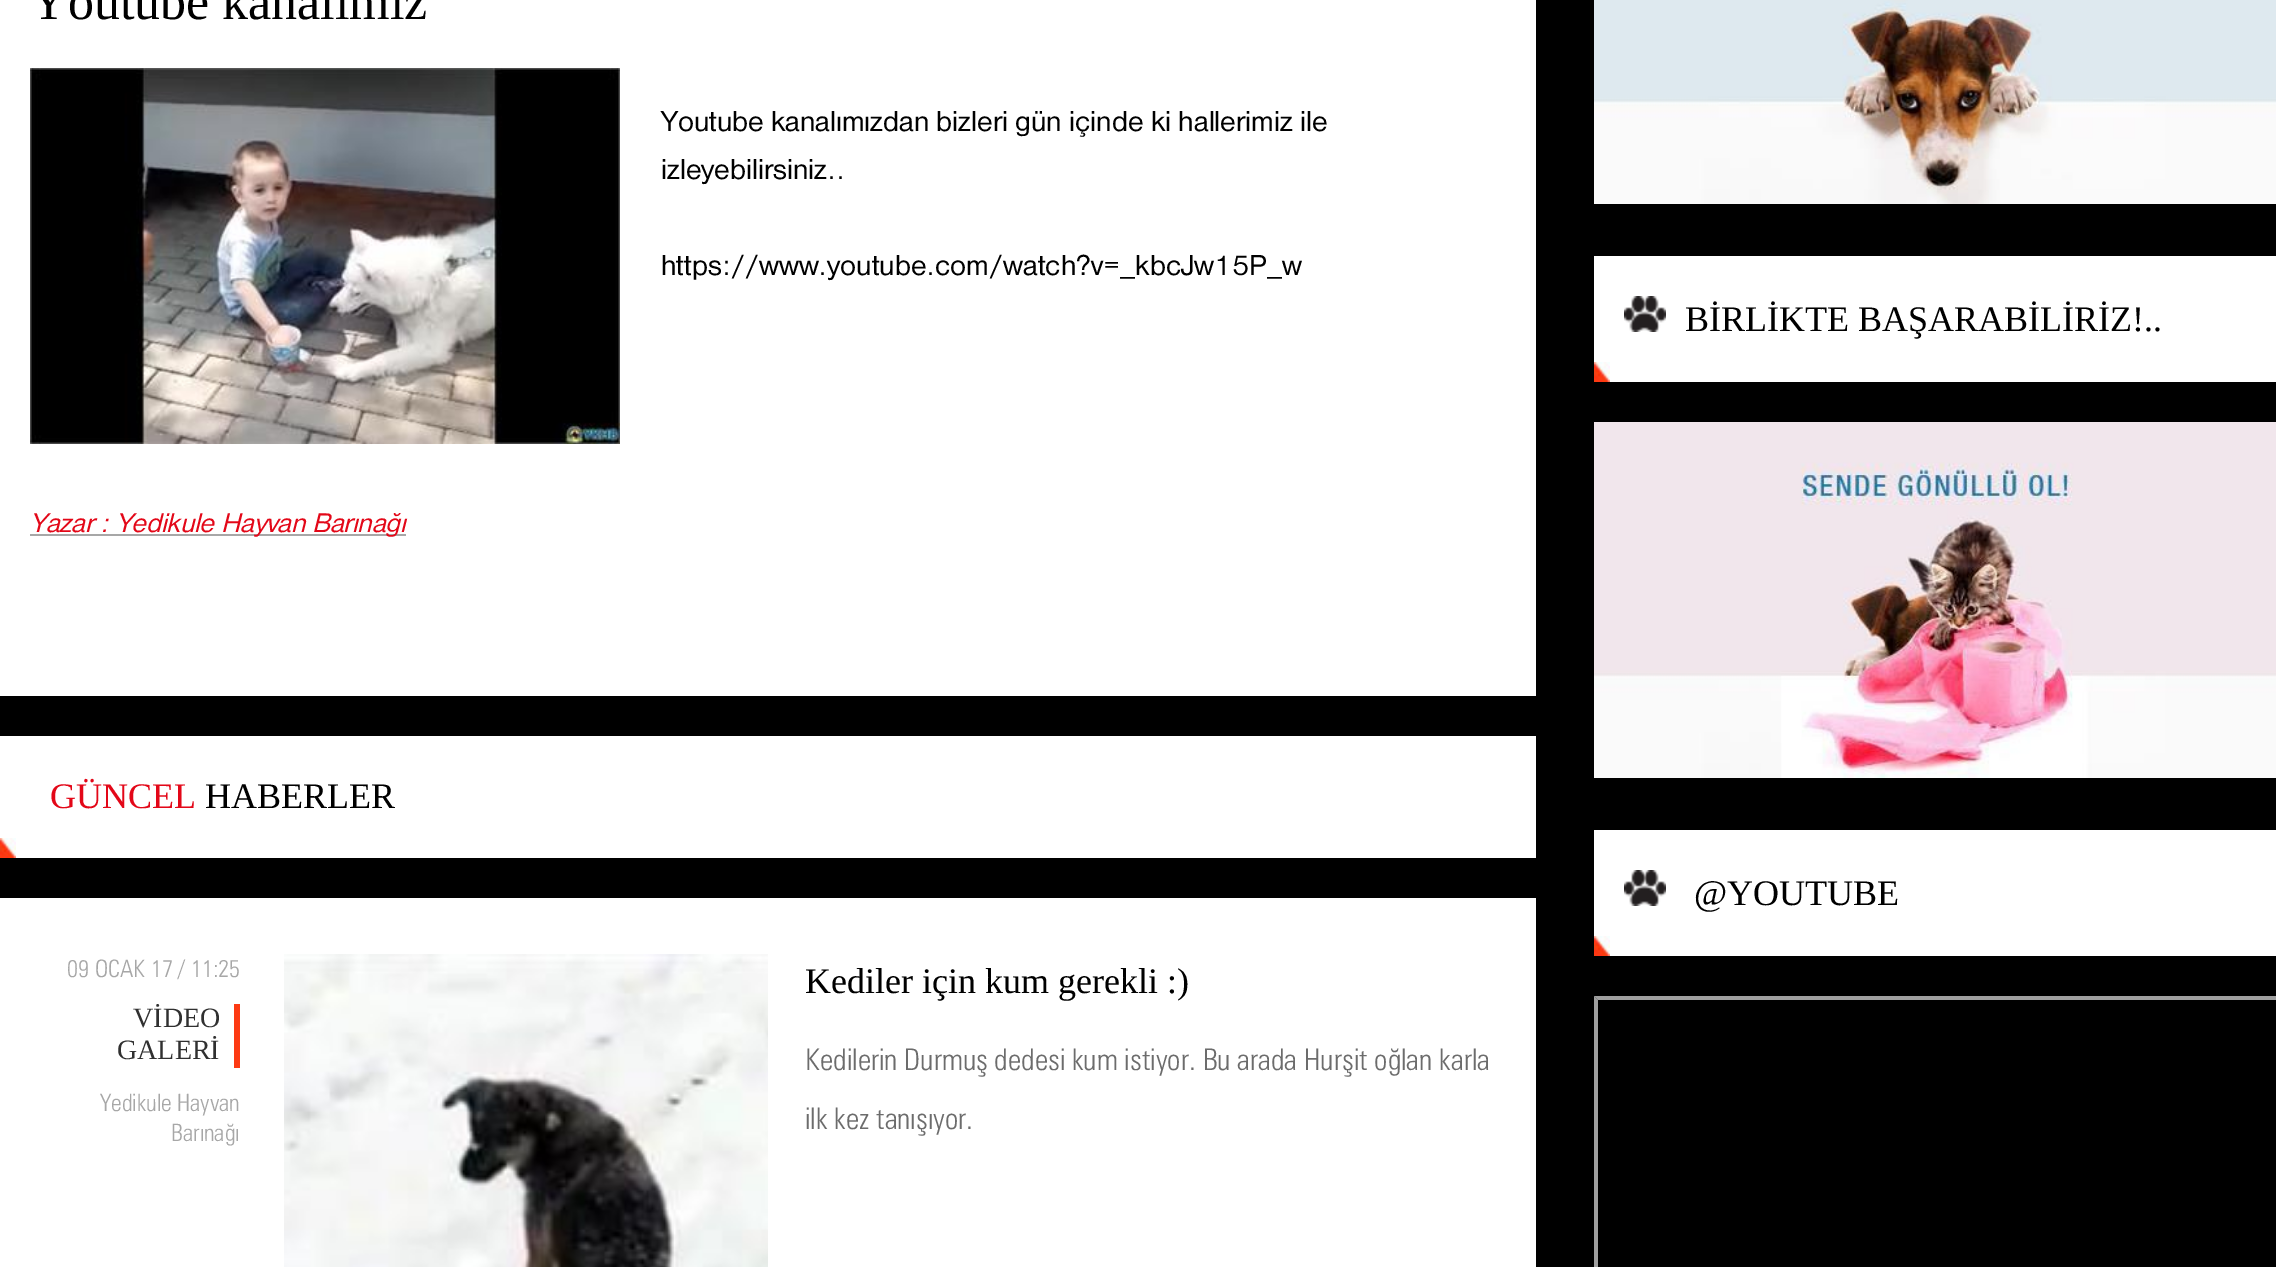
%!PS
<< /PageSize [2276 1267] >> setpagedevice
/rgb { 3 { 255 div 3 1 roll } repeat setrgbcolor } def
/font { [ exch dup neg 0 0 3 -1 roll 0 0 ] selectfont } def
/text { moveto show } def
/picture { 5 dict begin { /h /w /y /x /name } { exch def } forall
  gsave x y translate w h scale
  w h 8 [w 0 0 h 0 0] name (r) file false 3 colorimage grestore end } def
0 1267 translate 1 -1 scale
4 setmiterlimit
0 0 0 rgb
0 0 2276 1267 rectfill
255 255 255 rgb
0 0 1536 696 rectfill
(img_01.rgb) 30 68 590 376 picture
167 167 167 rgb
30 534 376 2 rectfill
255 255 255 rgb
0 736 1536 122 rectfill
(img_02.rgb) 0 838 16 20 picture
0 898 1536 369 rectfill
253 58 19 rgb
234 1004 6 64 rectfill
(img_03.rgb) 284 954 484 313 picture
(img_04.rgb) 1594 0 682 204 picture
255 255 255 rgb
1594 256 682 126 rectfill
(img_02.rgb) 1594 362 16 20 picture
(img_05.rgb) 1624 296 42 36 picture
(img_06.rgb) 1594 422 682 356 picture
1594 830 682 126 rectfill
(img_02.rgb) 1594 936 16 20 picture
(img_05.rgb) 1624 870 42 36 picture
159 159 159 rgb
1594 996 moveto 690 0 rlineto -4 4 rlineto -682 0 rlineto closepath fill
1594 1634 moveto 0 -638 rlineto 4 4 rlineto 0 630 rlineto closepath fill
/LiberationSerif-Regular 52 font
0 0 0 rgb
(Youtube kanalımız) 30 19 text
/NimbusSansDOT-Regular 30 font
(Youtube kanalımızdan bizleri gün içinde ki hallerimiz ile) 661 131 text
(izleyebilirsiniz..) 661 179 text
(https://www.youtube.com/watch?v=_kbcJw15P_w) 661 275 text
/NimbusSansDOT-Italic 28 font
227 7 24 rgb
(Yazar : Yedikule Hayvan Barınağı) 30 532 text
/LiberationSerif-Regular 36 font
(GÜNCEL) 50 808 text
0 0 0 rgb
(HABERLER) 205 808 text
/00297-Regular 24 font
167 167 167 rgb
(09 OCAK 17 / 11:25) 67 977 text
/LiberationSerif-Regular 28 font
48 48 48 rgb
(VİDEO) 133 1027 text
(GALERİ) 117 1059 text
/00297-Regular 24 font
167 167 167 rgb
(Yedikule Hayvan) 100 1111 text
(Barınağı) 171 1141 text
/LiberationSerif-Regular 36 font
0 0 0 rgb
(Kediler için kum gerekli :\)) 805 993 text
/00297-Regular 30 font
108 108 108 rgb
(Kedilerin Durmuş dedesi kum istiyor. Bu arada Hurşit oğlan karla) 805 1070 text
(ilk kez tanışıyor.) 805 1129 text
/LiberationSerif-Regular 36 font
0 0 0 rgb
(BİRLİKTE BAŞARABİLİRİZ!..) 1685 331 text
(@YOUTUBE) 1694 905 text
showpage
